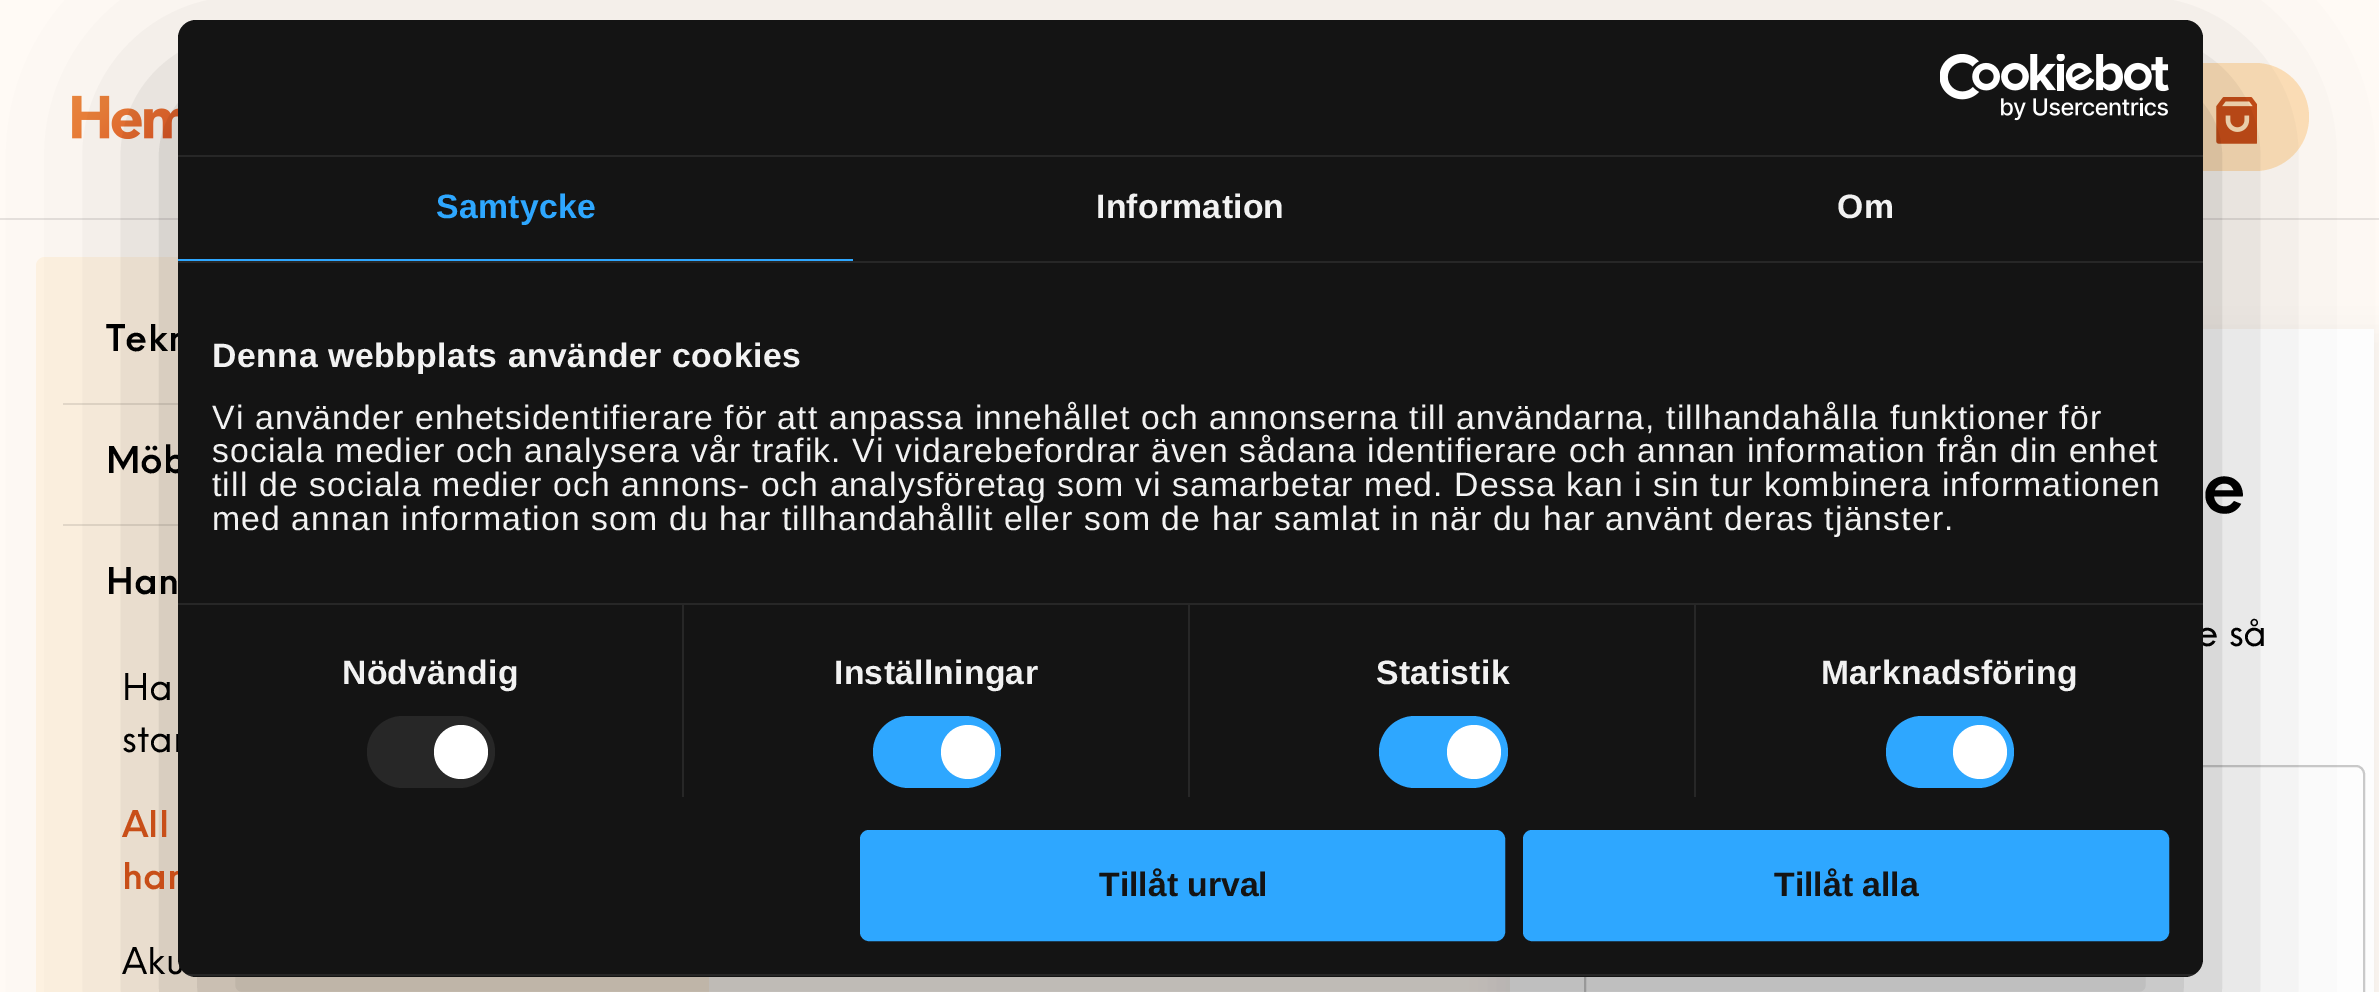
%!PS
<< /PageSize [2379 992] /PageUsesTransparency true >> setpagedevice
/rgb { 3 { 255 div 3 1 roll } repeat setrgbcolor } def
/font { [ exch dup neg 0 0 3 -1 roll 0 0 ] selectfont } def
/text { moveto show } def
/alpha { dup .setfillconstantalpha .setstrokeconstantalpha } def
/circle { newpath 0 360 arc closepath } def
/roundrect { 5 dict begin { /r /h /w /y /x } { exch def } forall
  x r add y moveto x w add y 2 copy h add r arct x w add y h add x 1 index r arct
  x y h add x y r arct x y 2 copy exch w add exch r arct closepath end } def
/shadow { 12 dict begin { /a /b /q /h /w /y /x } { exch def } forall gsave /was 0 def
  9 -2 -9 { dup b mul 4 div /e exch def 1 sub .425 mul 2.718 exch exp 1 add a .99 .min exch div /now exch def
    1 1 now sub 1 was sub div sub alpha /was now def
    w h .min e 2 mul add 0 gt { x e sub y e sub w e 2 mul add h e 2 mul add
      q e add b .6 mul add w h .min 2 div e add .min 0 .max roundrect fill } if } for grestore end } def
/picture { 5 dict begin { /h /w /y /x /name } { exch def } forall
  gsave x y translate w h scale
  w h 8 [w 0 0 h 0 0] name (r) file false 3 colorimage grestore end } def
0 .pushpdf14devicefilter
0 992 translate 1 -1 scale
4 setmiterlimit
255 250 245 rgb
0 0 2379 992 rectfill
230 225 221 rgb
0 218 2379 2 rectfill
(img_02.rgb) 72 95 106 44 picture
255 225 184 rgb
1931 63 378 108 54 roundrect fill
(img_03.rgb) 2216 97 41 47 picture
255 243 226 rgb
45 257 moveto 655 0 rlineto 5 0 9 4 9 9 rcurveto 0 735 rlineto -673 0 rlineto 0 -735 rlineto 0 -5 4 -9 9 -9 rcurveto closepath fill
230 219 203 rgb
63 403 115 2 rectfill
63 524 115 2 rectfill
0 0 0 rgb
1492 329 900 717 0 18 0.04 shadow
255 255 255 rgb
1510 329 864 663 rectfill
203 203 203 rgb
2 setlinewidth
1585 766 779 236 8 roundrect stroke
0 0 0 rgb
178 92 2025 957 18 76.5 0.3 shadow
/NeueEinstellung-SemiBold 36 font
(Tekn) 106 351 text
(Möb) 106 473 text
(Han) 106 594 text
/NeueEinstellung-Regular 36 font
(Ha) 122 700 text
(star) 122 752 text
/NeueEinstellung-SemiBold 36 font
200 78 24 rgb
(All) 122 837 text
(han) 122 889 text
/NeueEinstellung-Regular 36 font
0 0 0 rgb
(Aku) 122 974 text
/NeueEinstellung-SemiBold 72 font
(e) 2202 513 text
/NeueEinstellung-Regular 36 font
(e så) 2196 646 text
20 20 20 rgb
178 20 2025 957 18 roundrect fill
46 167 255 rgb
1525.5 832.5 641 106 6.5 roundrect gsave fill grestore
5 setlinewidth
stroke
/LiberationSans-Bold 33.75 font
20 20 20 rgb
(Tillåt alla) 1774 896 text
46 167 255 rgb
862.5 832.5 640 106 6.5 roundrect gsave fill grestore
stroke
20 20 20 rgb
(Tillåt urval) 1099 896 text
gsave
178 20 2025 957 18 roundrect clip newpath
0.08 alpha
255 255 255 rgb
178 974 2025 2 rectfill
grestore
46 167 255 rgb
1886 716 128 72 36 roundrect fill
255 255 255 rgb
1980 752 27 circle fill
46 167 255 rgb
1379 716 129 72 36 roundrect fill
255 255 255 rgb
1474 752 27 circle fill
46 167 255 rgb
873 716 128 72 36 roundrect fill
255 255 255 rgb
968 752 27 circle fill
39 39 39 rgb
367 716 128 72 36 roundrect fill
255 255 255 rgb
461 752 27 circle fill
/LiberationSans-Regular 33.75 font
242 242 242 rgb
212 530 moveto 1.12 0 (med annan information som du har tillhandahållit eller som de har samlat in när du har använt deras tjänster.) ashow
212 496 moveto 1.12 0 (till de sociala medier och annons- och analysföretag som vi samarbetar med. Dessa kan i sin tur kombinera informationen) ashow
212 462 moveto 1.12 0 (sociala medier och analysera vår trafik. Vi vidarebefordrar även sådana identifierare och annan information från din enhet) ashow
212 429 moveto 1.12 0 (Vi använder enhetsidentifierare för att anpassa innehållet och annonserna till användarna, tillhandahålla funktioner för) ashow
/LiberationSans-Bold 33.75 font
212 367 moveto 0.55 0 (Denna webbplats använder cookies) ashow
39 39 39 rgb
178 603 2025 2 rectfill
242 242 242 rgb
1837 218 moveto 0.25 0 (Om) ashow
1096 218 moveto 0.25 0 (Information) ashow
46 167 255 rgb
436 218 moveto 0.25 0 (Samtycke) ashow
178 259 675 2 rectfill
39 39 39 rgb
178 261 2025 2 rectfill
242 242 242 rgb
1821 684 moveto 0.25 0 (Marknadsföring) ashow
1376 684 moveto 0.25 0 (Statistik) ashow
39 39 39 rgb
1694 605 2 192 rectfill
242 242 242 rgb
834 684 moveto 0.25 0 (Inställningar) ashow
39 39 39 rgb
1188 605 2 192 rectfill
242 242 242 rgb
342 684 moveto 0.25 0 (Nödvändig) ashow
39 39 39 rgb
682 605 2 192 rectfill
(img_01.rgb) 1940 54 229 67 picture
178 155 2025 2 rectfill
.poppdf14devicefilter showpage
